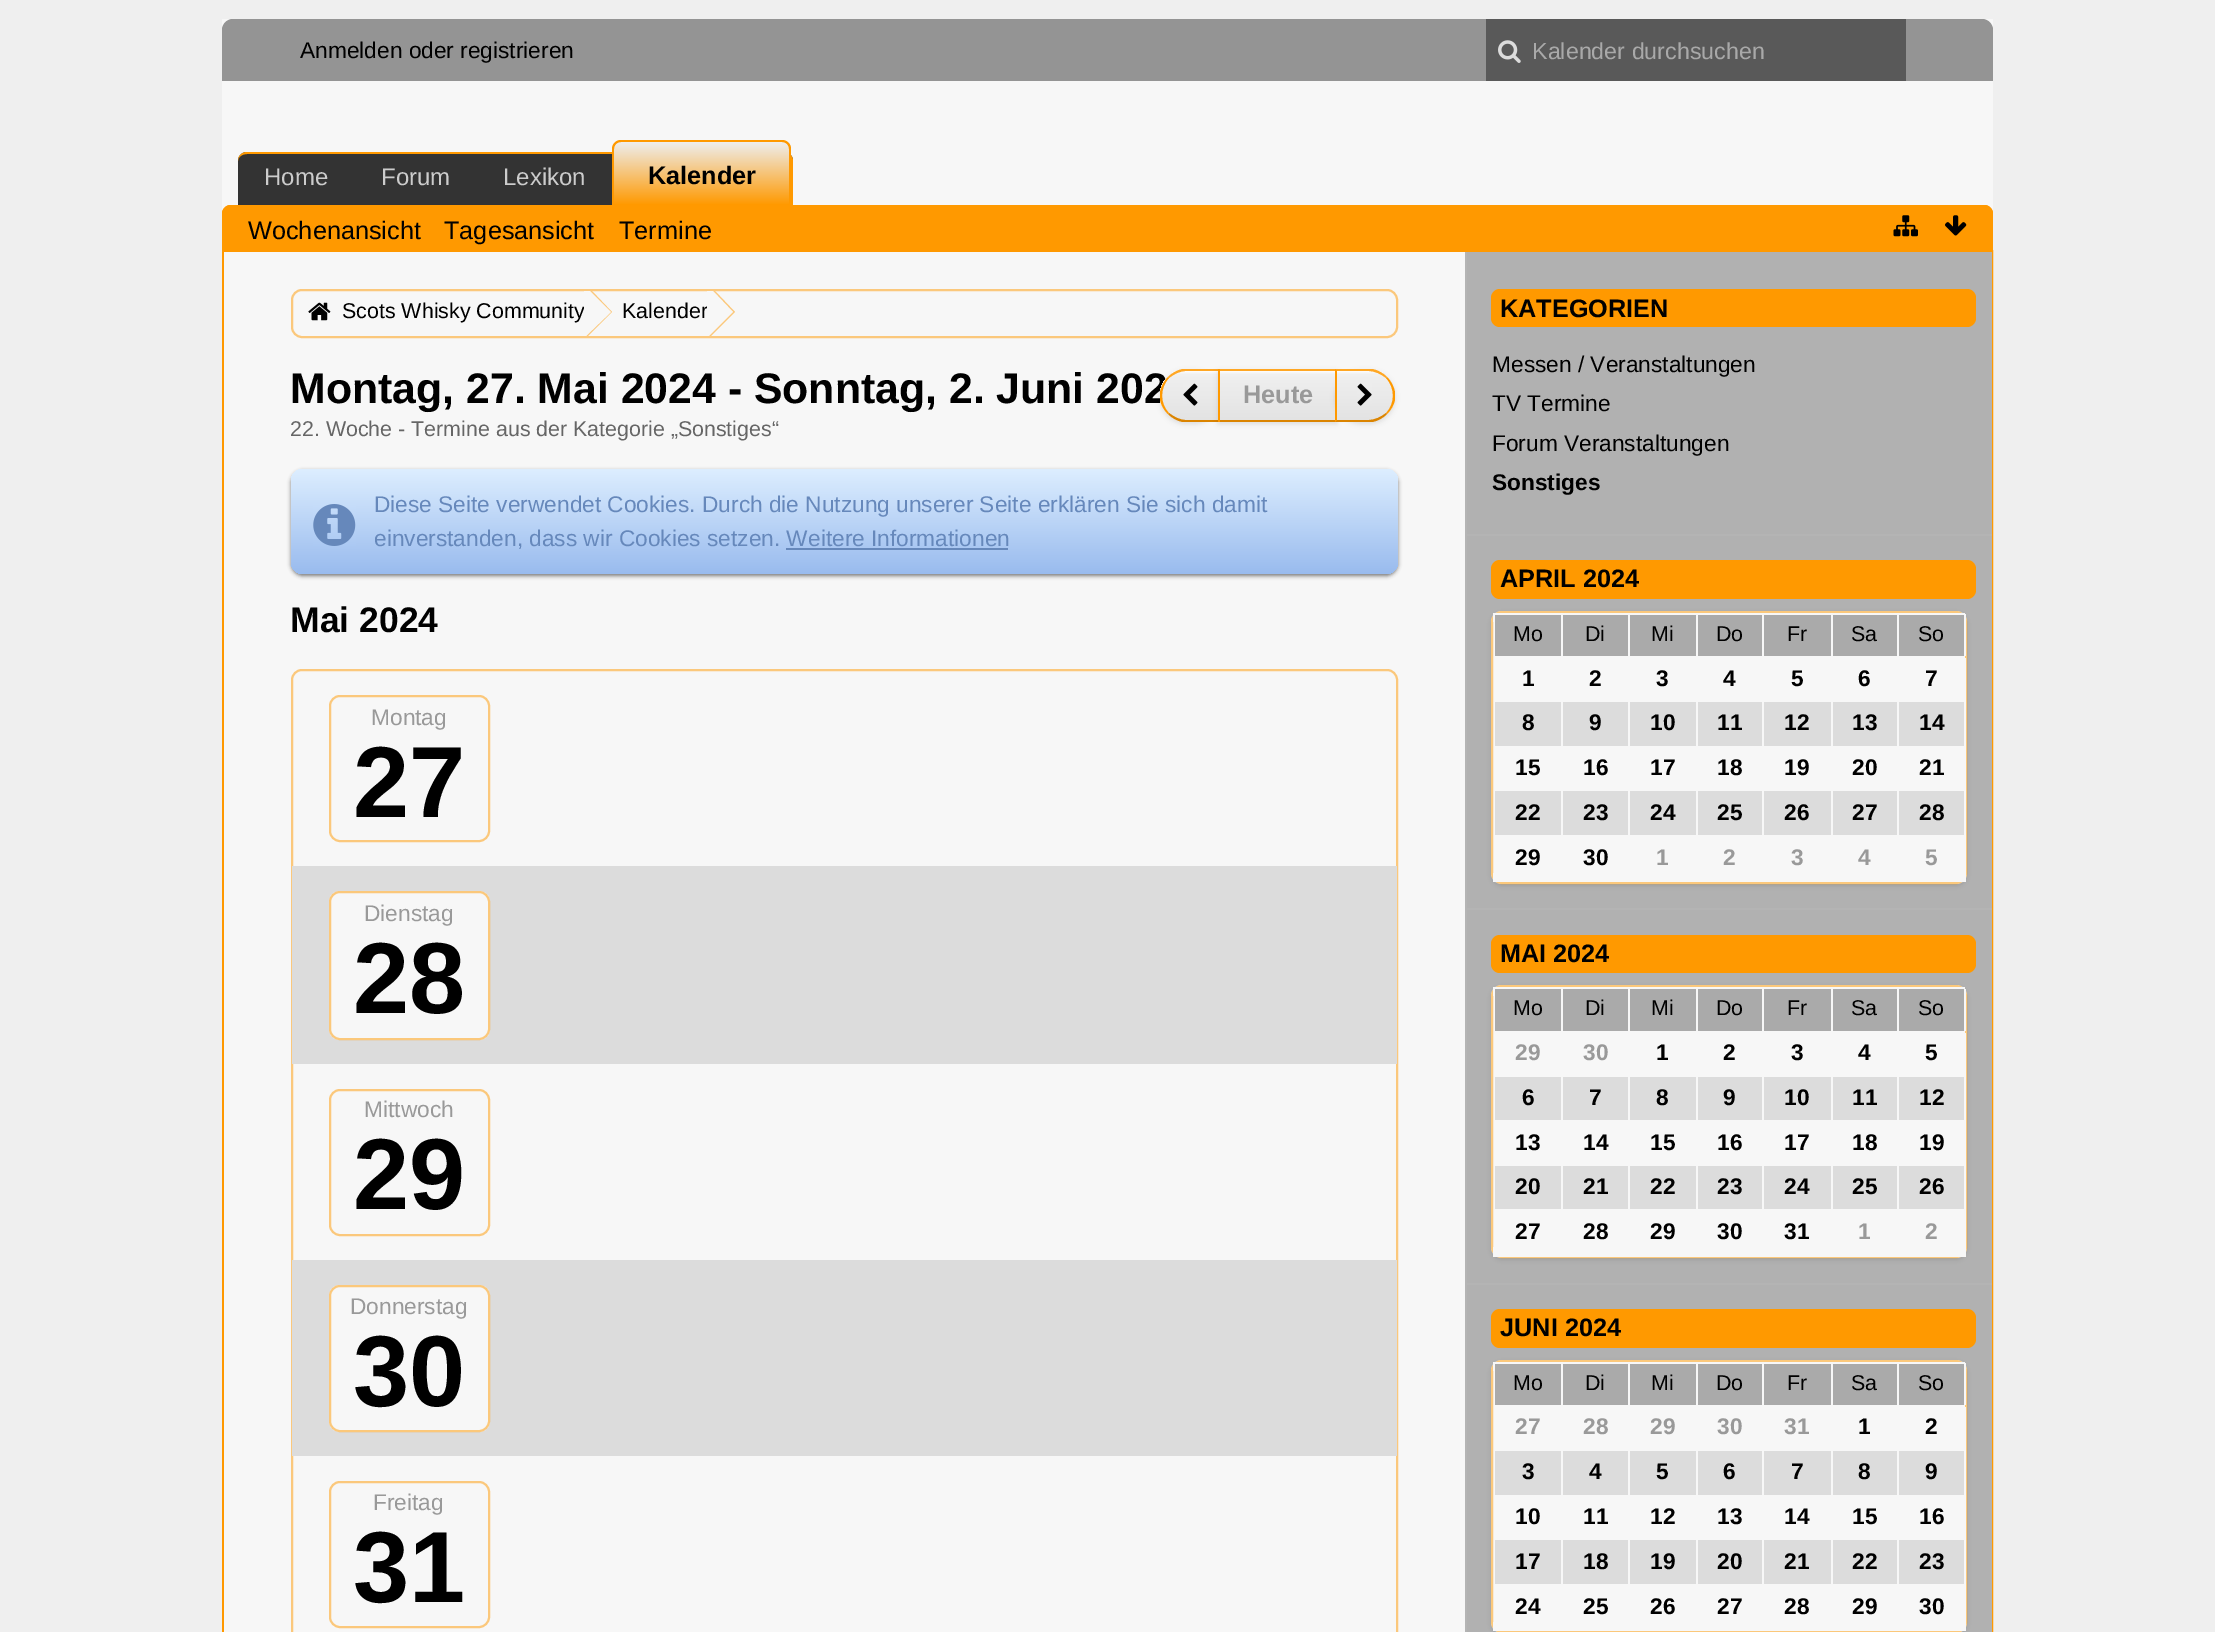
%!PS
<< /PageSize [2215 1632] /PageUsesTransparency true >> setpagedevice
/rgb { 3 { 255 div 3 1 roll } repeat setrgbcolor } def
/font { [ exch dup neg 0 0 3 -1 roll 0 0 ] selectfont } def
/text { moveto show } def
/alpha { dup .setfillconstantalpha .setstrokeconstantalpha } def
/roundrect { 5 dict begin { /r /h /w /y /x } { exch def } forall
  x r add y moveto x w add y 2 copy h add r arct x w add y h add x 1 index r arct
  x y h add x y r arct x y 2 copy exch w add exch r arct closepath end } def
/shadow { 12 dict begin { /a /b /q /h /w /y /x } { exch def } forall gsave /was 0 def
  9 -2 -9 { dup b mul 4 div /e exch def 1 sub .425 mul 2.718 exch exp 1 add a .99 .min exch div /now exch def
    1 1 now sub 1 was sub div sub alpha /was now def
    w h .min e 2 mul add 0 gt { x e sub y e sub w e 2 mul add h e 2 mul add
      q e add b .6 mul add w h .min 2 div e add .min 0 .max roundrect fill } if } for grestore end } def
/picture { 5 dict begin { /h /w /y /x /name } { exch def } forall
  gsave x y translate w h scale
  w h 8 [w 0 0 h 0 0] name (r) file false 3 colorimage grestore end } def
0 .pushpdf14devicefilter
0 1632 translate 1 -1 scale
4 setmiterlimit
239 239 239 rgb
0 0 2215 1632 rectfill
247 247 247 rgb
222 19 1771 195 rectfill
148 148 148 rgb
233 19 moveto 1749 0 rlineto 6 0 11 5 11 11 rcurveto 0 51 rlineto -1771 0 rlineto 0 -51 rlineto 0 -6 5 -11 11 -11 rcurveto closepath fill
89 89 89 rgb
1486 19 420 62 rectfill
(img_01.rgb) 1498 40 23 23 picture
51 51 51 rgb
247 152 moveto 537 0 rlineto 5 0 9 4 9 9 rcurveto 0 44 rlineto -555 0 rlineto 0 -44 rlineto 0 -5 4 -9 9 -9 rcurveto closepath fill
255 153 0 rgb
247 152 moveto 537 0 rlineto 5 0 9 4 9 9 rcurveto 0 44 rlineto -555 0 rlineto 0 -44 rlineto 0 -5 4 -9 9 -9 rcurveto closepath 247 154 moveto 537 0 rlineto 4 0 7 3 7 7 rcurveto 0 44 rlineto -553 0 rlineto 0 -44 rlineto 0 -4 4 -7 9 -7 rcurveto closepath eofill
gsave
622 140 moveto 160 0 rlineto 5 0 9 4 9 9 rcurveto 0 56 rlineto -178 0 rlineto 0 -56 rlineto 0 -5 4 -9 9 -9 rcurveto closepath clip newpath
gsave 614 142 moveto 177 0 rlineto 0 63 rlineto -177 0 rlineto closepath clip newpath
<< /ShadingType 2 /ColorSpace /DeviceRGB /Coords [702 142 702 205] /Extend [true true] /Function << /FunctionType 2 /Domain [0 1] /C0 [0.933 0.933 0.933] /C1 [1 0.6 0] /N 1 >> >> shfill grestore
grestore
621 140 moveto 161 0 rlineto 5 0 9 4 9 9 rcurveto 0 56 rlineto -179 0 rlineto 0 -56 rlineto 0 -5 4 -9 9 -9 rcurveto closepath 621 142 moveto 161 0 rlineto 4 0 7 3 7 7 rcurveto 0 56 rlineto -175 0 rlineto 0 -56 rlineto 0 -4 3 -7 7 -7 rcurveto closepath eofill
231 205 moveto 1753 0 rlineto 5 0 9 4 9 9 rcurveto 0 36 rlineto -1771 0 rlineto 0 -36 rlineto 0 -5 4 -9 9 -9 rcurveto closepath fill
231 205 moveto 1753 0 rlineto 5 0 9 4 9 9 rcurveto 0 36 rlineto -1771 0 rlineto 0 -36 rlineto 0 -5 4 -9 9 -9 rcurveto closepath 231 206 moveto 1753 0 rlineto 4 0 8 4 8 8 rcurveto 0 36 rlineto -1768 0 rlineto 0 -36 rlineto 0 -4 3 -8 7 -8 rcurveto closepath eofill
(img_02.rgb) 1893 215 25 22 picture
(img_03.rgb) 1945 215 22 21 picture
2 setlinewidth
223 251 1769 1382 rectstroke
247 247 247 rgb
224 252 1241 1380 rectfill
251 200 124 rgb
292 290 1105 47 10 roundrect stroke
(img_04.rgb) 308 302 23 19 picture
592 291 moveto 20 21 rlineto -24 24 rlineto -2 0 rlineto 0 -45 rlineto closepath fill
715 291 moveto 20 21 rlineto -24 24 rlineto -2 0 rlineto 0 -45 rlineto closepath fill
0 0 0 rgb
1160 371 60 53 26.5 2.5 0.1 shadow
291 471 1107 105 12 2 0.5 shadow
gsave 291 469 1107 105 12 roundrect clip newpath
<< /ShadingType 2 /ColorSpace /DeviceRGB /Coords [844 469 844 574] /Extend [true true] /Function << /FunctionType 2 /Domain [0 1] /C0 [0.867 0.933 1] /C1 [0.6 0.733 0.933] /N 1 >> >> shfill grestore
(img_07.rgb) 313 504 43 42 picture
102 136 187 rgb
786 548 222 2 rectfill
251 200 124 rgb
292 670 1105 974 10 roundrect stroke
330 696 159 145 10 roundrect stroke
220 220 220 rgb
292 866 1105 198 rectfill
247 247 247 rgb
329 891 161 149 11 roundrect fill
0.5 alpha
255 153 0 rgb
330 892 159 147 10 roundrect stroke
1 alpha
251 200 124 rgb
330 1090 159 145 10 roundrect stroke
220 220 220 rgb
292 1260 1105 196 rectfill
247 247 247 rgb
329 1285 161 147 11 roundrect fill
0.5 alpha
255 153 0 rgb
330 1286 159 145 10 roundrect stroke
1 alpha
251 200 124 rgb
330 1482 159 145 10 roundrect stroke
177 177 177 rgb
1467 252 525 1380 rectfill
180 180 180 rgb
1465 252 2 1380 rectfill
1467 534 525 2 rectfill
255 153 0 rgb
1491 289 485 38 9 roundrect fill
180 180 180 rgb
1467 908 525 2 rectfill
255 153 0 rgb
1491 560 485 39 9 roundrect fill
0 0 0 rgb
1491 613 476 273 11 2 0.1 shadow
247 247 247 rgb
1491 611 476 273 11 roundrect fill
0.5 alpha
255 153 0 rgb
1492 612 474 271 10 roundrect stroke
1 alpha
170 170 170 rgb
1495 615 469 41 rectfill
247 247 247 rgb
1493 613 472 2 rectfill
1493 613 2 9 rectfill
1561 614 2 42 rectfill
1628 614 2 42 rectfill
1696 614 2 42 rectfill
1762 614 2 42 rectfill
1831 614 2 42 rectfill
1897 614 2 42 rectfill
1964 614 2 42 rectfill
1965 658 1 179 rectfill
220 220 220 rgb
1495 702 469 44 rectfill
247 247 247 rgb
1561 702 2 45 rectfill
1628 702 2 45 rectfill
1696 702 2 45 rectfill
1762 702 2 45 rectfill
1831 702 2 45 rectfill
1897 702 2 45 rectfill
220 220 220 rgb
1495 791 469 44 rectfill
247 247 247 rgb
1561 791 2 46 rectfill
1628 791 2 46 rectfill
1696 791 2 46 rectfill
1762 791 2 46 rectfill
1831 791 2 46 rectfill
1897 791 2 46 rectfill
1493 873 471 9 rectfill
1964 837 2 45 rectfill
180 180 180 rgb
1467 1283 525 2 rectfill
255 153 0 rgb
1491 935 485 38 9 roundrect fill
0 0 0 rgb
1491 987 476 273 11 2 0.1 shadow
247 247 247 rgb
1491 985 476 273 11 roundrect fill
0.5 alpha
255 153 0 rgb
1492 986 474 271 10 roundrect stroke
1 alpha
170 170 170 rgb
1495 989 469 42 rectfill
247 247 247 rgb
1493 987 472 2 rectfill
1493 987 2 9 rectfill
1561 989 2 42 rectfill
1628 989 2 42 rectfill
1696 989 2 42 rectfill
1762 989 2 42 rectfill
1831 989 2 42 rectfill
1897 989 2 42 rectfill
1964 989 2 42 rectfill
1965 1033 1 178 rectfill
220 220 220 rgb
1495 1077 469 43 rectfill
247 247 247 rgb
1561 1076 2 46 rectfill
1628 1076 2 46 rectfill
1696 1076 2 46 rectfill
1762 1076 2 46 rectfill
1831 1076 2 46 rectfill
1897 1076 2 46 rectfill
220 220 220 rgb
1495 1166 469 43 rectfill
247 247 247 rgb
1561 1166 2 45 rectfill
1628 1166 2 45 rectfill
1696 1166 2 45 rectfill
1762 1166 2 45 rectfill
1831 1166 2 45 rectfill
1897 1166 2 45 rectfill
1493 1247 471 10 rectfill
1964 1211 2 46 rectfill
255 153 0 rgb
1491 1309 485 39 9 roundrect fill
0 0 0 rgb
1491 1362 476 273 11 2 0.1 shadow
247 247 247 rgb
1491 1360 476 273 11 roundrect fill
0.5 alpha
255 153 0 rgb
1492 1361 474 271 10 roundrect stroke
1 alpha
170 170 170 rgb
1495 1364 469 41 rectfill
247 247 247 rgb
1493 1362 472 2 rectfill
1493 1362 2 9 rectfill
1561 1363 2 42 rectfill
1628 1363 2 42 rectfill
1696 1363 2 42 rectfill
1762 1363 2 42 rectfill
1831 1363 2 42 rectfill
1897 1363 2 42 rectfill
1964 1363 2 42 rectfill
1965 1407 1 179 rectfill
220 220 220 rgb
1495 1451 469 44 rectfill
247 247 247 rgb
1561 1451 2 45 rectfill
1628 1451 2 45 rectfill
1696 1451 2 45 rectfill
1762 1451 2 45 rectfill
1831 1451 2 45 rectfill
1897 1451 2 45 rectfill
220 220 220 rgb
1495 1540 469 44 rectfill
247 247 247 rgb
1561 1540 2 46 rectfill
1628 1540 2 46 rectfill
1696 1540 2 46 rectfill
1762 1540 2 46 rectfill
1831 1540 2 46 rectfill
1897 1540 2 46 rectfill
1493 1622 471 9 rectfill
1964 1586 2 45 rectfill
/LiberationSans-Regular 22.7 font
0 0 0 rgb
(Anmelden oder registrieren) 300 58 text
/LiberationSans-Regular 23.25 font
169 169 169 rgb
(Kalender durchsuchen) 1532 59 text
/LiberationSans-Regular 24 font
204 204 204 rgb
(Home) 264 185 text
(Forum) 381 185 text
(Lexikon) 503 185 text
/LiberationSans-Bold 25.25 font
0 0 0 rgb
(Kalender) 648 184 text
/LiberationSans-Regular 25.25 font
(Wochenansicht) 248 239 text
(Tagesansicht) 444 239 text
(Termine) 619 239 text
/LiberationSans-Regular 21.4 font
(Scots Whisky Community) 342 318 text
247 247 247 rgb
590 291 moveto 21 21 rlineto -25 24 rlineto -2 0 rlineto 0 -45 rlineto closepath fill
0 0 0 rgb
(Kalender) 622 318 text
247 247 247 rgb
713 291 moveto 20 21 rlineto -24 24 rlineto -2 0 rlineto 0 -45 rlineto closepath fill
/LiberationSans-Bold 42.8 font
0 0 0 rgb
(Montag, 27. Mai 2024 - Sonntag, 2. Juni 202) 290 403 text
gsave
1186.5 369 moveto 33.5 0 rlineto 0 53 rlineto -33.5 0 rlineto -14.5 0 -26.5 -12 -26.5 -26.5 rcurveto 0 -14.5 12 -26.5 26.5 -26.5 rcurveto closepath clip newpath
gsave 1160 371 moveto 58 0 rlineto 0 49 rlineto -58 0 rlineto closepath clip newpath
<< /ShadingType 2 /ColorSpace /DeviceRGB /Coords [1190 371 1190 420] /Extend [true true] /Function << /FunctionType 3 /Domain [0 1] /Functions [<< /FunctionType 2 /Domain [0 1] /C0 [0.992 0.992 0.992] /C1 [0.941 0.941 0.941] /N 1 >> << /FunctionType 2 /Domain [0 1] /C0 [0.941 0.941 0.941] /C1 [0.89 0.89 0.89] /N 1 >>] /Bounds [0.07] /Encode [0 1 0 1] >> >> shfill grestore
grestore
255 167 36 rgb
1186 371 moveto -6 0 -12 3 -17 7 rcurveto -1 -1 rlineto 4 -4 9 -7 15 -8 rcurveto 37 0 rlineto -2 2 rlineto closepath fill
219 132 0 rgb
1220 422 moveto -37 0 rlineto -6 -1 -11 -4 -15 -8 rcurveto 1 -1 rlineto 5 4 11 7 17 7 rcurveto 32 0 rlineto closepath fill
255 153 0 rgb
1160 392.5 moveto 1 -6.5 4 -11.5 8 -15.5 rcurveto 1 1 rlineto -9 9.5 -9.5 25.5 0 35 rcurveto -1 1 rlineto -4 -3.5 -7 -9 -8 -14.5 rcurveto closepath fill
(img_05.rgb) 1183 383 15 23 picture
0 0 0 rgb
1218 371 119 53 0 2.5 0.1 shadow
gsave 1220 371 moveto 115 0 rlineto 0 49 rlineto -115 0 rlineto closepath clip newpath
<< /ShadingType 2 /ColorSpace /DeviceRGB /Coords [1278 371 1278 420] /Extend [true true] /Function << /FunctionType 3 /Domain [0 1] /Functions [<< /FunctionType 2 /Domain [0 1] /C0 [0.992 0.992 0.992] /C1 [0.941 0.941 0.941] /N 1 >> << /FunctionType 2 /Domain [0 1] /C0 [0.941 0.941 0.941] /C1 [0.89 0.89 0.89] /N 1 >>] /Bounds [0.07] /Encode [0 1 0 1] >> >> shfill grestore
255 167 36 rgb
1218 369 119 2 rectfill
219 132 0 rgb
1218 420 119 2 rectfill
255 153 0 rgb
1218 369 2 53 rectfill
/LiberationSans-Bold 25.25 font
153 153 153 rgb
(Heute) 1243 403 text
0 0 0 rgb
1335 371 60 53 26.5 2.5 0.1 shadow
gsave
1335 369 moveto 33.5 0 rlineto 14.5 0 26.5 12 26.5 26.5 rcurveto 0 14.5 -12 26.5 -26.5 26.5 rcurveto -33.5 0 rlineto closepath clip newpath
gsave 1337 371 moveto 58 0 rlineto 0 49 rlineto -58 0 rlineto closepath clip newpath
<< /ShadingType 2 /ColorSpace /DeviceRGB /Coords [1365 371 1365 420] /Extend [true true] /Function << /FunctionType 3 /Domain [0 1] /Functions [<< /FunctionType 2 /Domain [0 1] /C0 [0.992 0.992 0.992] /C1 [0.941 0.941 0.941] /N 1 >> << /FunctionType 2 /Domain [0 1] /C0 [0.941 0.941 0.941] /C1 [0.89 0.89 0.89] /N 1 >>] /Bounds [0.07] /Encode [0 1 0 1] >> >> shfill grestore
grestore
255 167 36 rgb
1337 371 moveto -2 -2 rlineto 37 0 rlineto 6 1 11 4 15 8 rcurveto -1 1 rlineto -5 -4 -11 -7 -18 -7 rcurveto closepath fill
255 153 0 rgb
1395 399.5 moveto -1 5.5 -4 10.5 -8 14.5 rcurveto -1 -1 rlineto 9.5 -9.5 9 -25.5 0 -35 rcurveto 1 -1 rlineto 4 4 7 9.5 8 15.5 rcurveto closepath fill
219 132 0 rgb
1387 414 moveto -4 4 -9 7 -15 8 rcurveto -37 0 rlineto 2 -2 rlineto 31 0 rlineto 7 0 13 -3 18 -7 rcurveto closepath fill
255 153 0 rgb
1335 422 moveto 2 -2 rlineto 0 -49 rlineto -2 -2 rlineto closepath fill
(img_06.rgb) 1357 383 15 23 picture
/LiberationSans-Regular 21.4 font
102 102 102 rgb
(22. Woche - Termine aus der Kategorie „Sonstiges“) 290 436 text
/LiberationSans-Regular 22.7 font
102 136 187 rgb
(Diese Seite verwendet Cookies. Durch die Nutzung unserer Seite erklären Sie sich damit) 374 512 text
(einverstanden, dass wir Cookies setzen. Weitere Informationen) 374 546 text
/LiberationSans-Bold 35.5 font
0 0 0 rgb
(Mai 2024) 290 632 text
/LiberationSans-Regular 22.7 font
153 153 153 rgb
(Montag) 371 725 text
/LiberationSans-Bold 101 font
0 0 0 rgb
(27) 353 817 text
/LiberationSans-Regular 22.7 font
153 153 153 rgb
(Dienstag) 364 921 text
/LiberationSans-Bold 101 font
0 0 0 rgb
(28) 353 1013 text
/LiberationSans-Regular 22.7 font
153 153 153 rgb
(Mittwoch) 364 1117 text
/LiberationSans-Bold 101 font
0 0 0 rgb
(29) 353 1209 text
/LiberationSans-Regular 22.7 font
153 153 153 rgb
(Donnerstag) 350 1314 text
/LiberationSans-Bold 101 font
0 0 0 rgb
(30) 353 1406 text
/LiberationSans-Regular 22.7 font
153 153 153 rgb
(Freitag) 373 1510 text
/LiberationSans-Bold 101 font
0 0 0 rgb
(31) 353 1602 text
/LiberationSans-Bold 25.25 font
(KATEGORIEN) 1500 317 text
/LiberationSans-Regular 22.7 font
(Messen / Veranstaltungen) 1492 372 text
(TV Termine) 1492 411 text
(Forum Veranstaltungen) 1492 451 text
/LiberationSans-Bold 22.7 font
(Sonstiges) 1492 490 text
/LiberationSans-Bold 25.25 font
(APRIL 2024) 1500 587 text
/LiberationSans-Regular 21.4 font
(Mo) 1513 641 text
(Di) 1585 641 text
(Mi) 1651 641 text
(Do) 1716 641 text
(Fr) 1787 641 text
(Sa) 1851 641 text
(So) 1918 641 text
/LiberationSans-Bold 22.7 font
(1) 1522 686 text
(2) 1589 686 text
(3) 1656 686 text
(4) 1723 686 text
(5) 1791 686 text
(6) 1858 686 text
(7) 1925 686 text
(8) 1522 730 text
(9) 1589 730 text
(10) 1650 730 text
(11) 1717 730 text
(12) 1784 730 text
(13) 1852 730 text
(14) 1919 730 text
(15) 1515 775 text
(16) 1583 775 text
(17) 1650 775 text
(18) 1717 775 text
(19) 1784 775 text
(20) 1852 775 text
(21) 1919 775 text
(22) 1515 820 text
(23) 1583 820 text
(24) 1650 820 text
(25) 1717 820 text
(26) 1784 820 text
(27) 1852 820 text
(28) 1919 820 text
(29) 1515 865 text
(30) 1583 865 text
153 153 153 rgb
(1) 1656 865 text
(2) 1723 865 text
(3) 1791 865 text
(4) 1858 865 text
(5) 1925 865 text
/LiberationSans-Bold 25.25 font
0 0 0 rgb
(MAI 2024) 1500 962 text
/LiberationSans-Regular 21.4 font
(Mo) 1513 1015 text
(Di) 1585 1015 text
(Mi) 1651 1015 text
(Do) 1716 1015 text
(Fr) 1787 1015 text
(Sa) 1851 1015 text
(So) 1918 1015 text
/LiberationSans-Bold 22.7 font
153 153 153 rgb
(29) 1515 1060 text
(30) 1583 1060 text
0 0 0 rgb
(1) 1656 1060 text
(2) 1723 1060 text
(3) 1791 1060 text
(4) 1858 1060 text
(5) 1925 1060 text
(6) 1522 1105 text
(7) 1589 1105 text
(8) 1656 1105 text
(9) 1723 1105 text
(10) 1784 1105 text
(11) 1852 1105 text
(12) 1919 1105 text
(13) 1515 1150 text
(14) 1583 1150 text
(15) 1650 1150 text
(16) 1717 1150 text
(17) 1784 1150 text
(18) 1852 1150 text
(19) 1919 1150 text
(20) 1515 1194 text
(21) 1583 1194 text
(22) 1650 1194 text
(23) 1717 1194 text
(24) 1784 1194 text
(25) 1852 1194 text
(26) 1919 1194 text
(27) 1515 1239 text
(28) 1583 1239 text
(29) 1650 1239 text
(30) 1717 1239 text
(31) 1784 1239 text
153 153 153 rgb
(1) 1858 1239 text
(2) 1925 1239 text
/LiberationSans-Bold 25.25 font
0 0 0 rgb
(JUNI 2024) 1500 1336 text
/LiberationSans-Regular 21.4 font
(Mo) 1513 1390 text
(Di) 1585 1390 text
(Mi) 1651 1390 text
(Do) 1716 1390 text
(Fr) 1787 1390 text
(Sa) 1851 1390 text
(So) 1918 1390 text
/LiberationSans-Bold 22.7 font
153 153 153 rgb
(27) 1515 1434 text
(28) 1583 1434 text
(29) 1650 1434 text
(30) 1717 1434 text
(31) 1784 1434 text
0 0 0 rgb
(1) 1858 1434 text
(2) 1925 1434 text
(3) 1522 1479 text
(4) 1589 1479 text
(5) 1656 1479 text
(6) 1723 1479 text
(7) 1791 1479 text
(8) 1858 1479 text
(9) 1925 1479 text
(10) 1515 1524 text
(11) 1583 1524 text
(12) 1650 1524 text
(13) 1717 1524 text
(14) 1784 1524 text
(15) 1852 1524 text
(16) 1919 1524 text
(17) 1515 1569 text
(18) 1583 1569 text
(19) 1650 1569 text
(20) 1717 1569 text
(21) 1784 1569 text
(22) 1852 1569 text
(23) 1919 1569 text
(24) 1515 1614 text
(25) 1583 1614 text
(26) 1650 1614 text
(27) 1717 1614 text
(28) 1784 1614 text
(29) 1852 1614 text
(30) 1919 1614 text
.poppdf14devicefilter showpage
